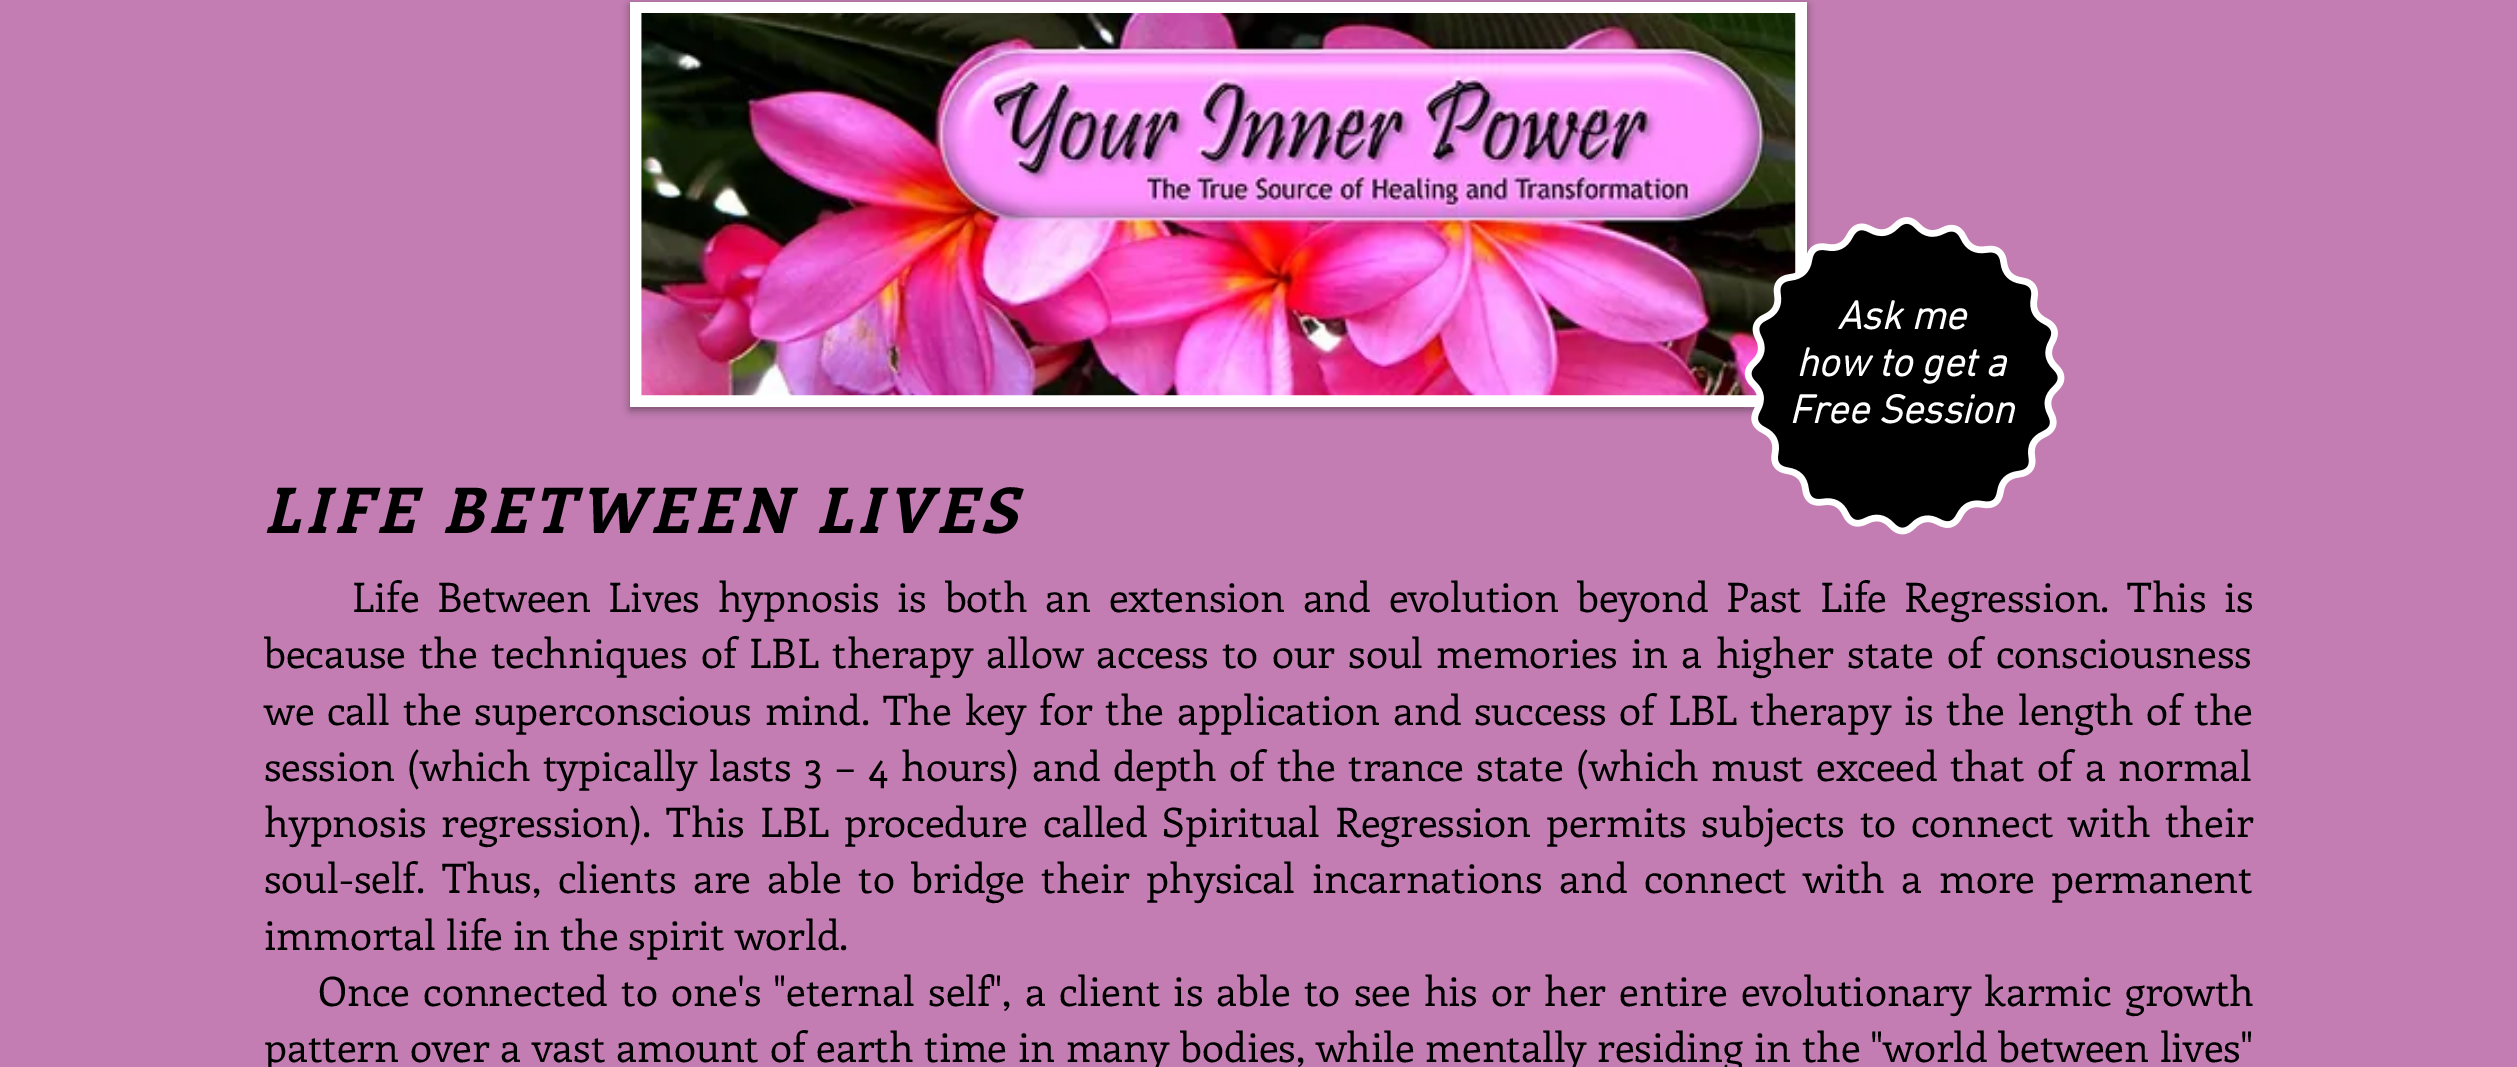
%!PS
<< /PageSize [2517 1067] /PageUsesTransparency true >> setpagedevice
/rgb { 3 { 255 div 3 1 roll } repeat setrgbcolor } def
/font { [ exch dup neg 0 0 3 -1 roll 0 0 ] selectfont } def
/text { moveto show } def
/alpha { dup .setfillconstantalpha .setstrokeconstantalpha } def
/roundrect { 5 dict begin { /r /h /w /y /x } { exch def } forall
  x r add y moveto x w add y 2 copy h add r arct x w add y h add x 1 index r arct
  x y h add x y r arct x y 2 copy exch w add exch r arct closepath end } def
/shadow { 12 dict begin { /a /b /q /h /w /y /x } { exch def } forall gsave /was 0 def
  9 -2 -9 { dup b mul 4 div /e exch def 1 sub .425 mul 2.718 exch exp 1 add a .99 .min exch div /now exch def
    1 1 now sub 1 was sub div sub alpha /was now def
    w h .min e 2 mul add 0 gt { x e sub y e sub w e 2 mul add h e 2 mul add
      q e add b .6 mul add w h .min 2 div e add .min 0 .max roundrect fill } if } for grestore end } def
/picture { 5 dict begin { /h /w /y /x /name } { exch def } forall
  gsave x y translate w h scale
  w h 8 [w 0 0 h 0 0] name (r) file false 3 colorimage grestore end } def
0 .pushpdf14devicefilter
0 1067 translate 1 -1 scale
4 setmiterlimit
195 125 179 rgb
0 0 2517 1067 rectfill
0 0 0 rgb
630 5 1177 405 0 4.5 0.4 shadow
255 255 255 rgb
630 2 1177 405 rectfill
(img_01.rgb) 641 13 1155 383 picture
(img_02.rgb) 1744 217 321 318 picture
/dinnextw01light-BoldItalic 40.5 font
(Ask me) 1837 329 text
(how to get a) 1796 376 text
(Free Session) 1789 423 text
/Enriqueta-BoldItalic 63 font
0 0 0 rgb
264 533 moveto 6.25 0 (LIFE BETWEEN LIVES) ashow
/Enriqueta-Regular 40.5 font
352 612 moveto 7.6 0 32 (Life Between Lives hypnosis is both an extension and evolution beyond Past Life Regression. This is) widthshow
264 668 moveto 3.25 0 32 (because the techniques of LBL therapy allow access to our soul memories in a higher state of consciousness) widthshow
264 725 moveto 2.9 0 32 (we call the superconscious mind. The key for the application and success of LBL therapy is the length of the) widthshow
264 781 moveto 2.5 0 32 (session \(which typically lasts 3 – 4 hours\) and depth of the trance state \(which must exceed that of a normal) widthshow
264 837 moveto 4.9 0 32 (hypnosis regression\). This LBL procedure called Spiritual Regression permits subjects to connect with their) widthshow
264 893 moveto 6.6 0 32 (soul-self. Thus, clients are able to bridge their physical incarnations and connect with a more permanent) widthshow
(immortal life in the spirit world.) 264 950 text
318 1006 moveto 3.4 0 32 (Once connected to one's "eternal self", a client is able to see his or her entire evolutionary karmic growth) widthshow
264 1062 moveto 0.9 0 32 (pattern over a vast amount of earth time in many bodies, while mentally residing in the "world between lives") widthshow
.poppdf14devicefilter showpage
